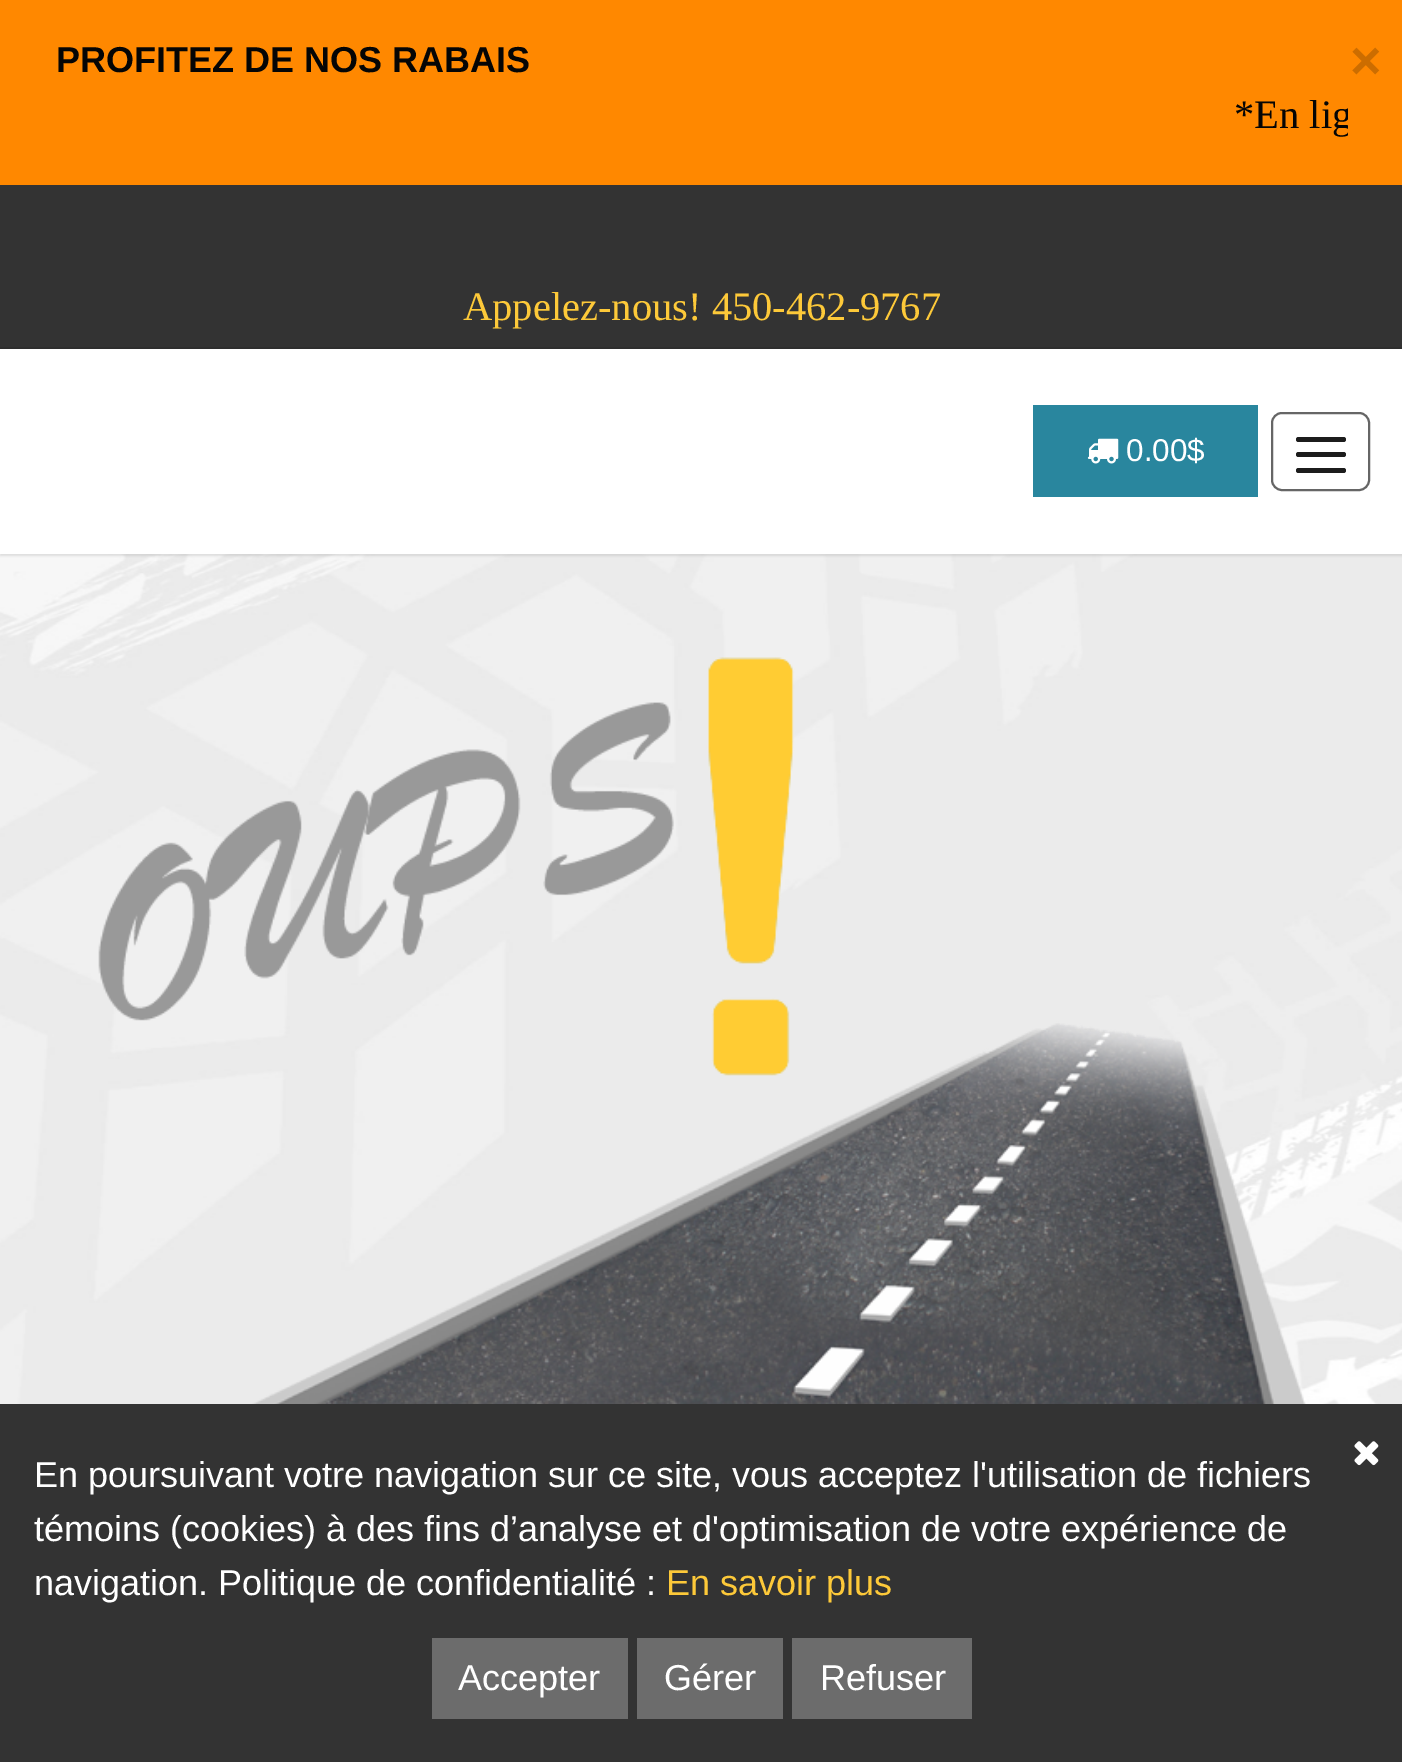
%!PS
<< /PageSize [1402 1762] /PageUsesTransparency true >> setpagedevice
/rgb { 3 { 255 div 3 1 roll } repeat setrgbcolor } def
/font { [ exch dup neg 0 0 3 -1 roll 0 0 ] selectfont } def
/text { moveto show } def
/alpha { dup .setfillconstantalpha .setstrokeconstantalpha } def
/roundrect { 5 dict begin { /r /h /w /y /x } { exch def } forall
  x r add y moveto x w add y 2 copy h add r arct x w add y h add x 1 index r arct
  x y h add x y r arct x y 2 copy exch w add exch r arct closepath end } def
/shadow { 12 dict begin { /a /b /q /h /w /y /x } { exch def } forall gsave /was 0 def
  9 -2 -9 { dup b mul 4 div /e exch def 1 sub .425 mul 2.718 exch exp 1 add a .99 .min exch div /now exch def
    1 1 now sub 1 was sub div sub alpha /was now def
    w h .min e 2 mul add 0 gt { x e sub y e sub w e 2 mul add h e 2 mul add
      q e add b .6 mul add w h .min 2 div e add .min 0 .max roundrect fill } if } for grestore end } def
/picture { 5 dict begin { /h /w /y /x /name } { exch def } forall
  gsave x y translate w h scale
  w h 8 [w 0 0 h 0 0] name (r) file false 3 colorimage grestore end } def
0 .pushpdf14devicefilter
0 1762 translate 1 -1 scale
4 setmiterlimit
255 136 0 rgb
0 0 1402 1762 rectfill
51 51 51 rgb
0 185 1402 162 rectfill
46 46 46 rgb
0 347 1402 2 rectfill
(img_02.rgb) 0 554 1402 850 picture
0 0 0 rgb
0 351 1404 205 0 1 0.1 shadow
255 255 255 rgb
0 349 1402 205 rectfill
41 134 158 rgb
1033 405 225 92 rectfill
(img_01.rgb) 1087 438 32 26 picture
102 102 102 rgb
2 setlinewidth
1272 413 97 77 10 roundrect stroke
28 28 28 rgb
1296 437 50 5 2.5 roundrect fill
1296 452 50 5 2.5 roundrect fill
1296 468 50 5 2.5 roundrect fill
(img_03.rgb) 98 657 1208 747 picture
51 51 51 rgb
0 1404 1402 358 rectfill
(img_04.rgb) 1354 1441 25 25 picture
108 108 108 rgb
432 1638 196 81 rectfill
637 1638 146 81 rectfill
792 1638 180 81 rectfill
/LiberationSans-Bold 36 font
5 5 5 rgb
(PROFITEZ DE NOS RABAIS) 56 72 text
gsave
56 88 1292 81 rectclip
/LiberationSerif-Regular 40.5 font
(*En lig) 1234 128 text
grestore
/LiberationSans-Bold 54 font
204 109 0 rgb
(×) 1350 79 text
/LiberationSerif-Regular 40.5 font
253 201 57 rgb
(Appelez-nous! 450-462-9767) 463 320 text
/LiberationSans-Regular 31.5 font
255 255 255 rgb
(0.00$) 1126 461 text
/LiberationSans-Regular 36 font
(En poursuivant votre navigation sur ce site, vous acceptez l'utilisation de fichiers) 34 1487 text
(témoins \(cookies\) à des fins d’analyse et d'optimisation de votre expérience de) 34 1541 text
(navigation. Politique de confidentialité :) 34 1595 text
253 201 57 rgb
(En savoir plus) 666 1595 text
255 255 255 rgb
(Accepter) 458 1690 text
(Gérer) 664 1690 text
(Refuser) 820 1690 text
.poppdf14devicefilter showpage
